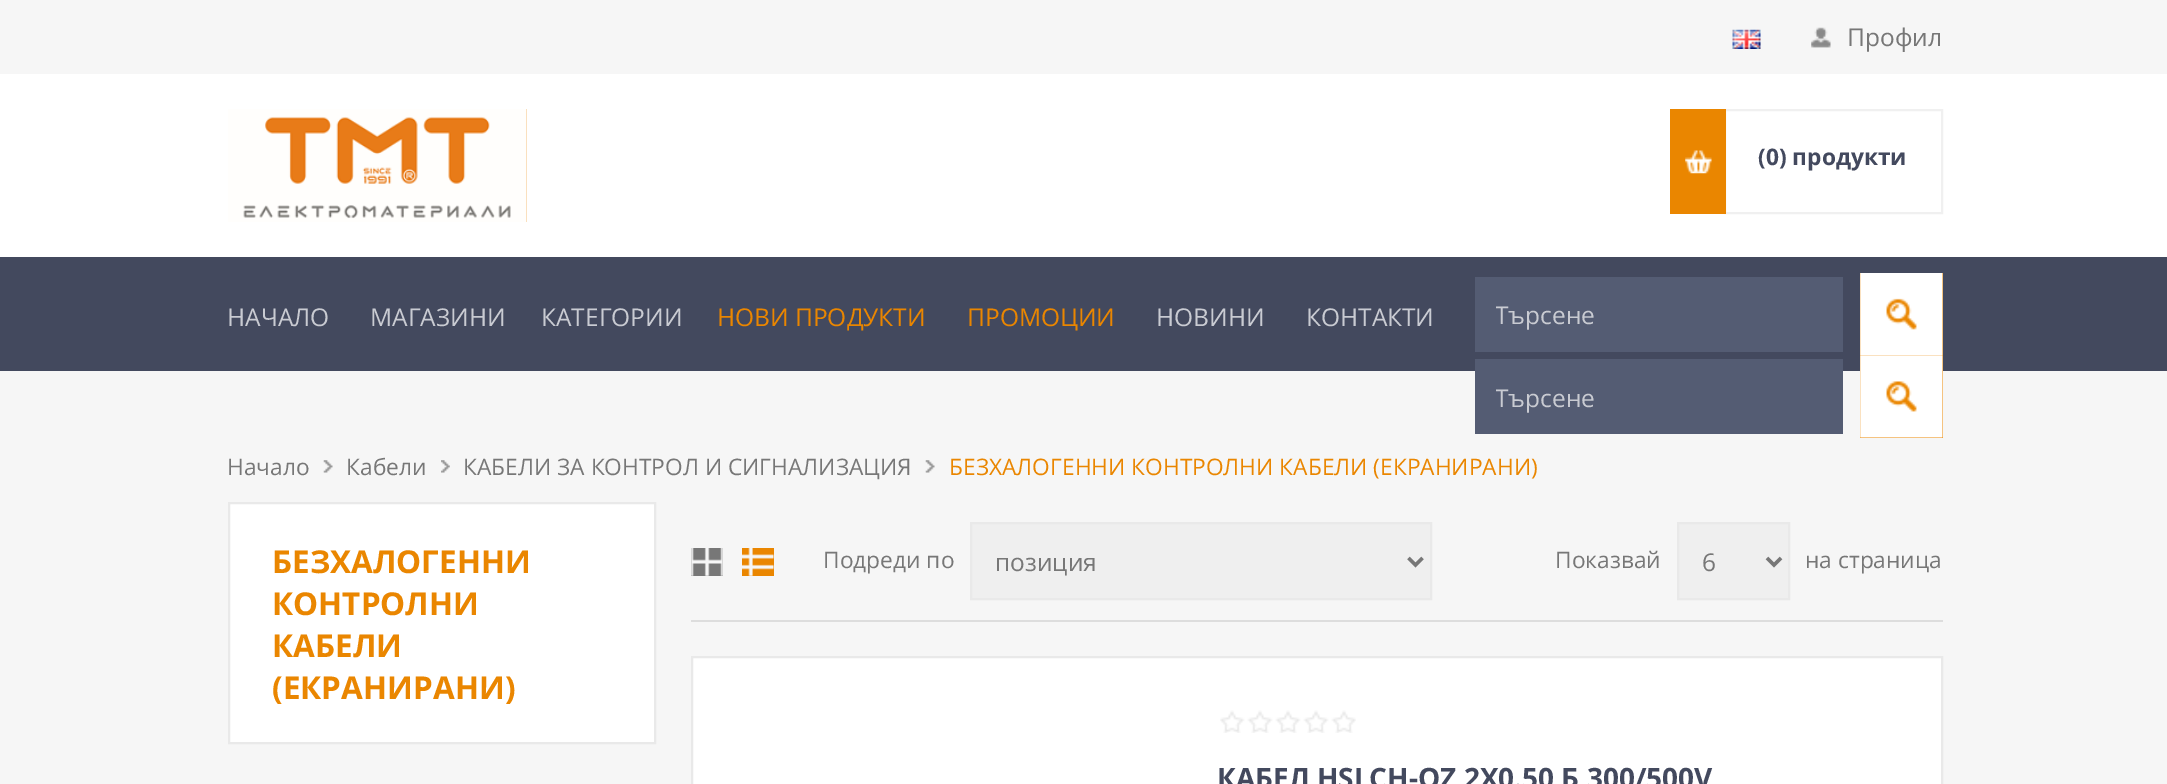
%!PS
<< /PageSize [2167 784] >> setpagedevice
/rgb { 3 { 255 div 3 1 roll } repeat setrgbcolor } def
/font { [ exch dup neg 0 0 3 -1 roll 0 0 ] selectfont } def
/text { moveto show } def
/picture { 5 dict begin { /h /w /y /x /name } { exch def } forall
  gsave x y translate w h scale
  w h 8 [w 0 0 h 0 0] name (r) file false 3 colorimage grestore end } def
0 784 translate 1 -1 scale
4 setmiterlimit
246 246 246 rgb
0 0 2167 784 rectfill
(img_01.rgb) 1732 29 29 20 picture
(img_02.rgb) 1811 27 20 21 picture
255 255 255 rgb
0 74 2167 183 rectfill
(img_03.rgb) 228 109 299 113 picture
240 240 240 rgb
2 setlinewidth
1725 110 217 103 rectstroke
234 134 0 rgb
1670 109 56 105 rectfill
(img_04.rgb) 1685 150 27 24 picture
67 73 94 rgb
0 257 2167 114 rectfill
84 92 115 rgb
1475 277 368 75 rectfill
234 134 0 rgb
1860 273 83 165 rectfill
(img_05.rgb) 1860 273 83 82 picture
84 92 115 rgb
1475 359 368 75 rectfill
(img_06.rgb) 1860 355 83 83 picture
(img_07.rgb) 323 460 10 13 picture
(img_08.rgb) 441 460 9 13 picture
(img_07.rgb) 925 460 10 13 picture
255 255 255 rgb
229 503 moveto 426 0 rlineto 0 240 rlineto -426 0 rlineto closepath gsave fill grestore
233 233 233 rgb
stroke
221 221 221 rgb
691 620 1252 2 rectfill
119 119 119 rgb
691 548 32 28 rectfill
(img_09.rgb) 691 548 32 28 picture
234 134 0 rgb
742 548 32 28 rectfill
(img_10.rgb) 742 548 32 28 picture
239 239 239 rgb
971 523 moveto 460 0 rlineto 0 76 rlineto -460 0 rlineto closepath gsave fill grestore
233 233 233 rgb
stroke
119 119 119 rgb
3.5 setlinewidth
1408.5 558 moveto 7 7 rlineto 7 -7 rlineto stroke
239 239 239 rgb
1678 523 moveto 111 0 rlineto 0 76 rlineto -111 0 rlineto closepath gsave fill grestore
233 233 233 rgb
2 setlinewidth
stroke
119 119 119 rgb
3.5 setlinewidth
1767 558 moveto 7 7 rlineto 7 -7 rlineto stroke
255 255 255 rgb
692 657 moveto 1250 0 rlineto 0 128 rlineto -1250 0 rlineto closepath gsave fill grestore
233 233 233 rgb
2 setlinewidth
stroke
(img_11.rgb) 1220 710 136 23 picture
/OpenSans-Regular 24.5 font
119 119 119 rgb
(Профил) 1847 46 text
/OpenSans-Bold 22.75 font
67 73 94 rgb
(\(0\) продукти) 1758 165 text
/OpenSans-Regular 24.5 font
201 203 210 rgb
(НАЧАЛО) 227 326 text
(МАГАЗИНИ) 370 326 text
(КАТЕГОРИИ) 541 326 text
234 134 0 rgb
(НОВИ ПРОДУКТИ) 717 326 text
(ПРОМОЦИИ) 967 326 text
201 203 210 rgb
(НОВИНИ) 1156 326 text
(КОНТАКТИ) 1306 326 text
gsave
1496 298 326 33 rectclip
(Търсене) 1495 324 text
grestore
gsave
1496 380 326 33 rectclip
(Търсене) 1495 407 text
grestore
/OpenSans-Regular 22.75 font
119 119 119 rgb
(Начало) 227 475 text
(Кабели) 346 475 text
(КАБЕЛИ ЗА КОНТРОЛ И СИГНАЛИЗАЦИЯ) 463 475 text
234 134 0 rgb
(БЕЗХАЛОГЕННИ КОНТРОЛНИ КАБЕЛИ \(ЕКРАНИРАНИ\)) 949 475 text
/OpenSans-Bold 31.5 font
(БЕЗХАЛОГЕННИ) 272 573 text
(КОНТРОЛНИ) 272 615 text
(КАБЕЛИ) 272 657 text
(\(ЕКРАНИРАНИ\)) 272 699 text
/OpenSans-Regular 22.75 font
119 119 119 rgb
(Подреди по) 823 568 text
/OpenSans-Regular 24.5 font
(позиция) 995 571 text
/OpenSans-Regular 22.75 font
(Показвай) 1555 568 text
/OpenSans-Regular 24.5 font
(6) 1702 571 text
/OpenSans-Regular 22.75 font
(на страница) 1805 568 text
/OpenSans-Bold 28 font
67 73 94 rgb
(КАБЕЛ HSLCH-OZ 2Х0.50 Б 300/500V) 1217 788 text
showpage
